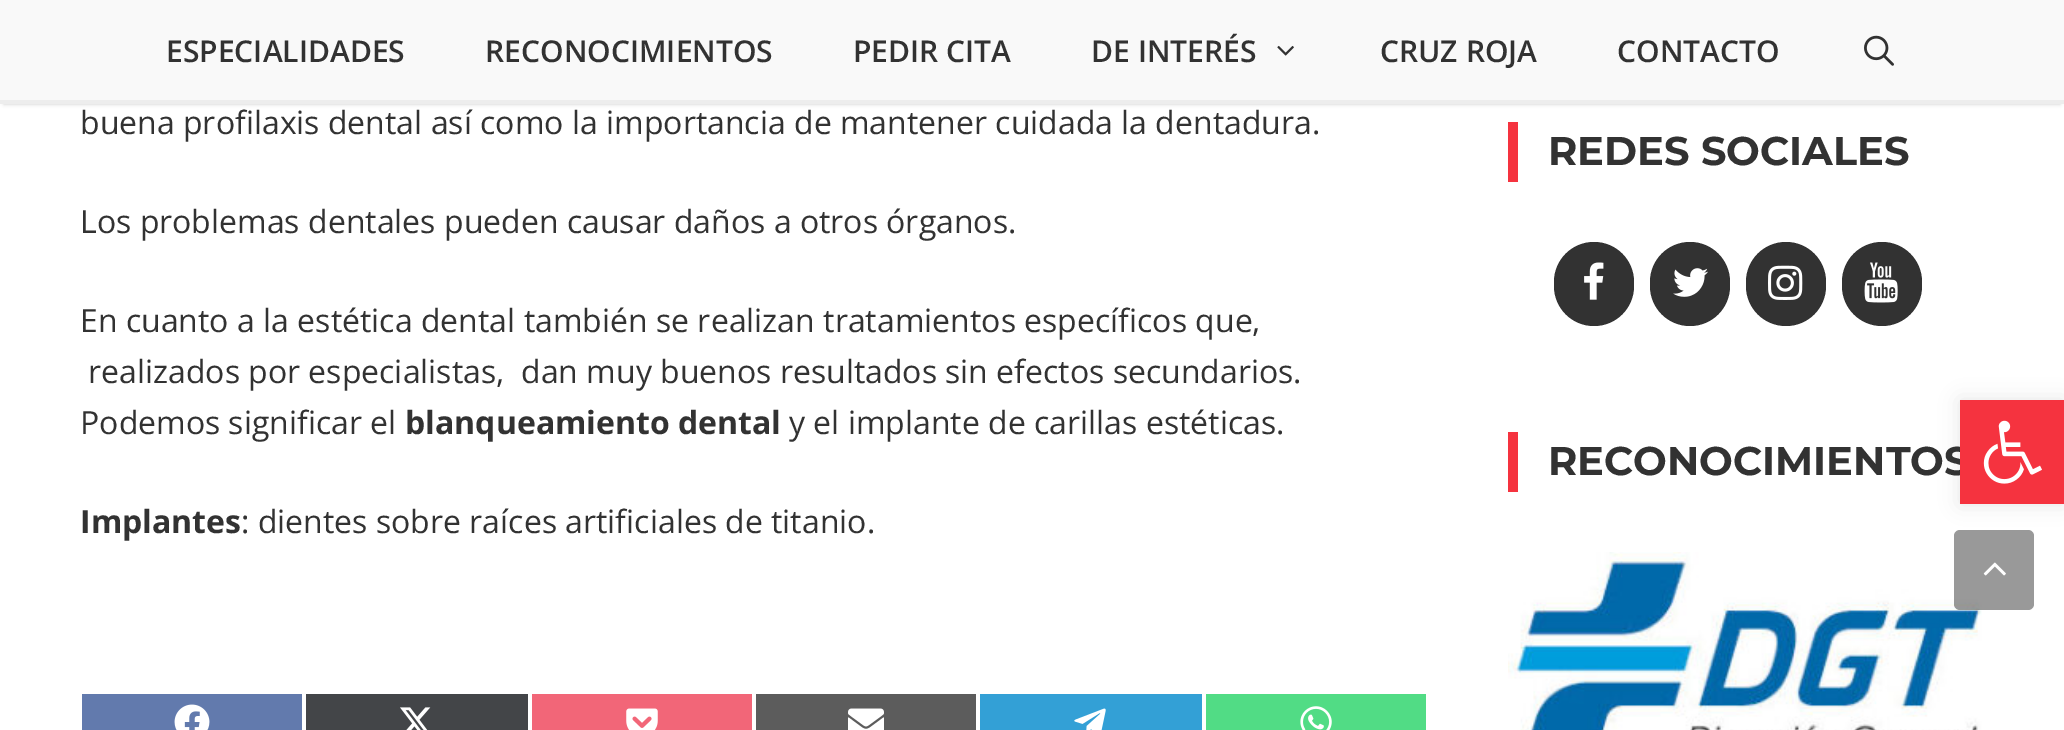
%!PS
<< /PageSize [2064 730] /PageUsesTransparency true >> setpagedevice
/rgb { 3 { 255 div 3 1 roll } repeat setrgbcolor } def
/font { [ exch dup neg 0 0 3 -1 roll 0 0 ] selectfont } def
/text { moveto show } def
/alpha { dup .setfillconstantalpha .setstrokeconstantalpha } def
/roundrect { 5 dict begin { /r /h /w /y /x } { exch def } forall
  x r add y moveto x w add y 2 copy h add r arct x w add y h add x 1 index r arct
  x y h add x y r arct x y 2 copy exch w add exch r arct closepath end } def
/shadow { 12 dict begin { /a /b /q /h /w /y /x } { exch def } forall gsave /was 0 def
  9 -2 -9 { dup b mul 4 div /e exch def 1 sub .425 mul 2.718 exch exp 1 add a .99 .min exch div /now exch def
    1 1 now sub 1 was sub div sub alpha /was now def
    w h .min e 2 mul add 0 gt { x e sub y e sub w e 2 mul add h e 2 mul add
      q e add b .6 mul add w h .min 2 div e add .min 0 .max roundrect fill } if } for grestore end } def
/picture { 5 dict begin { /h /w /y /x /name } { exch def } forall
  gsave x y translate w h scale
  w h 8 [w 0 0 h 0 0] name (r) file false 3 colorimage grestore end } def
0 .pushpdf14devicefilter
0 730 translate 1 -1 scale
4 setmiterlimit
255 255 255 rgb
0 0 2064 730 rectfill
0 0 0 rgb
4 8 2056 96 0 2 0.2 shadow
249 249 249 rgb
0 0 2064 100 rectfill
237 237 237 rgb
0 100 2064 4 rectfill
(img_01.rgb) 1277 45 17 11 picture
(img_02.rgb) 1864 35 30 31 picture
98 122 173 rgb
82 694 220 36 rectfill
(img_03.rgb) 174 704 36 26 picture
67 69 72 rgb
306 694 222 36 rectfill
(img_04.rgb) 400 707 31 23 picture
242 102 120 rgb
532 694 220 36 rectfill
(img_05.rgb) 626 708 32 22 picture
92 92 92 rgb
756 694 220 36 rectfill
(img_06.rgb) 848 708 36 22 picture
51 160 214 rgb
980 694 222 36 rectfill
(img_07.rgb) 1074 708 32 22 picture
81 220 133 rgb
1206 694 220 36 rectfill
(img_08.rgb) 1300 706 32 24 picture
245 51 63 rgb
1508 122 10 60 rectfill
50 50 50 rgb
1554 242 80 84 40 roundrect fill
(img_09.rgb) 1584 262 20 38 picture
1650 242 80 84 40 roundrect fill
(img_10.rgb) 1673 268 35 29 picture
1746 242 80 84 40 roundrect fill
(img_11.rgb) 1768 265 35 35 picture
1842 242 80 84 40 roundrect fill
(img_12.rgb) 1864 262 34 41 picture
245 51 63 rgb
1508 432 10 60 rectfill
(img_13.rgb) 1508 552 474 178 picture
0.4 alpha
0 0 0 rgb
1954 530 80 80 6 roundrect fill
1 alpha
1960 400 104 104 0 10 0.1 shadow
(img_15.rgb) 1983 562 23 14 picture
/OpenSans-SemiBold 30 font
50 50 50 rgb
(ESPECIALIDADES) 166 62 text
(RECONOCIMIENTOS) 485 62 text
(PEDIR CITA) 853 62 text
(DE INTERÉS) 1091 62 text
(CRUZ ROJA) 1380 62 text
(CONTACTO) 1617 62 text
/OpenSans-Regular 32 font
(buena profilaxis dental así como la importancia de mantener cuidada la dentadura.) 80 134 text
(Los problemas dentales pueden causar daños a otros órganos.) 80 233 text
(En cuanto a la estética dental también se realizan tratamientos específicos que,) 80 332 text
(realizados por especialistas,  dan muy buenos resultados sin efectos secundarios.) 88 383 text
(Podemos significar el) 80 434 text
/OpenSans-Bold 32 font
(blanqueamiento dental) 405 434 text
/OpenSans-Regular 32 font
(y el implante de carillas estéticas.) 789 434 text
/OpenSans-Bold 32 font
(Implantes) 80 533 text
/OpenSans-Regular 32 font
(: dientes sobre raíces artificiales de titanio.) 241 533 text
/Montserrat-Bold 40 font
(REDES SOCIALES) 1548 165 text
(RECONOCIMIENTOS) 1548 475 text
245 51 63 rgb
1960 400 104 104 rectfill
(img_14.rgb) 1983 420 59 64 picture
.poppdf14devicefilter showpage
